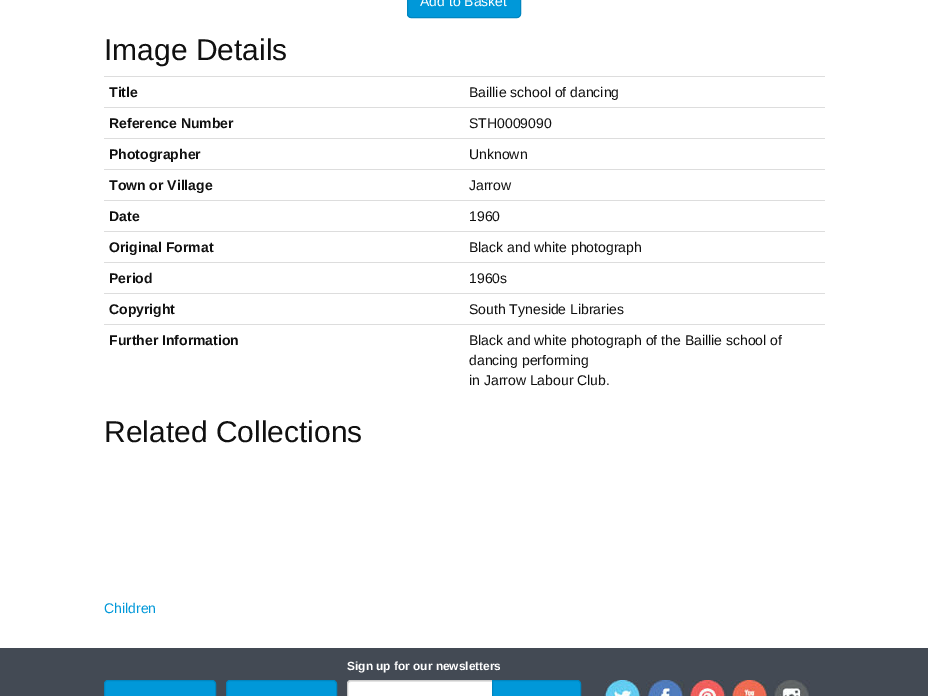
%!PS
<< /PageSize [928 696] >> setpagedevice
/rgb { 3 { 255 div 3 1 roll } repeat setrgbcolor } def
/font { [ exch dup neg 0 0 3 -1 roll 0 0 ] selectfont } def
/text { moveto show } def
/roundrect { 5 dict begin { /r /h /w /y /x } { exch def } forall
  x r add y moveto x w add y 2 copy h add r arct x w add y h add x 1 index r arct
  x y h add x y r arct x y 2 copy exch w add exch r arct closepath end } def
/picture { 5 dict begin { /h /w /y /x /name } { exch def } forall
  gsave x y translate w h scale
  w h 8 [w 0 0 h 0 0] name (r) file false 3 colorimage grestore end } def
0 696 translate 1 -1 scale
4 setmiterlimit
255 255 255 rgb
0 0 928 696 rectfill
0 152 217 rgb
407.5 -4.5 113 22 3.5 roundrect gsave fill grestore
0 134 192 rgb
stroke
221 221 221 rgb
104 76 721 1 rectfill
104 107 721 1 rectfill
104 138 721 1 rectfill
104 169 721 1 rectfill
104 200 721 1 rectfill
104 231 721 1 rectfill
104 262 721 1 rectfill
104 293 721 1 rectfill
104 324 721 1 rectfill
67 74 84 rgb
0 648 928 48 rectfill
255 255 255 rgb
351 680 moveto 142 0 rlineto 0 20 rlineto -142 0 rlineto -2 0 -4 -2 -4 -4 rcurveto 0 -12 rlineto 0 -2 2 -4 4 -4 rcurveto closepath fill
236 236 236 rgb
351 682 moveto 141 0 rlineto 0 -1 rlineto -141 0 rlineto -2 0 -3 2 -3 4 rcurveto 0 -2 1 -3 3 -3 rcurveto closepath fill
204 204 204 rgb
351 680.5 moveto 141.5 0 rlineto 0 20 rlineto -141.5 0 rlineto -2 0 -3.5 -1.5 -3.5 -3.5 rcurveto 0 -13 rlineto 0 -2 1.5 -3.5 3.5 -3.5 rcurveto closepath stroke
0 152 217 rgb
492.5 680.5 moveto 84.5 0 rlineto 2 0 3.5 1.5 3.5 3.5 rcurveto 0 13 rlineto 0 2 -1.5 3.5 -3.5 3.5 rcurveto -84.5 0 rlineto closepath gsave fill grestore
0 134 192 rgb
stroke
0 152 217 rgb
104.5 680.5 111 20 3.5 roundrect gsave fill grestore
0 134 192 rgb
stroke
0 152 217 rgb
226.5 680.5 110 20 3.5 roundrect gsave fill grestore
0 134 192 rgb
stroke
(img_01.rgb) 603 680 39 16 picture
(img_02.rgb) 646 680 39 16 picture
(img_03.rgb) 688 680 39 16 picture
(img_04.rgb) 731 680 38 16 picture
(img_05.rgb) 773 680 37 16 picture
/LiberationSans-Regular 14 font
255 255 255 rgb
(Add to Basket) 420 6 text
/LiberationSans-Regular 30 font
16 16 16 rgb
(Image Details) 104 60 text
/LiberationSans-Bold 14 font
(Title) 109 97 text
/LiberationSans-Regular 14 font
(Baillie school of dancing) 469 97 text
/LiberationSans-Bold 14 font
(Reference Number) 109 128 text
/LiberationSans-Regular 14 font
(STH0009090) 469 128 text
/LiberationSans-Bold 14 font
(Photographer) 109 159 text
/LiberationSans-Regular 14 font
(Unknown) 469 159 text
/LiberationSans-Bold 14 font
(Town or Village) 109 190 text
/LiberationSans-Regular 14 font
(Jarrow) 469 190 text
/LiberationSans-Bold 14 font
(Date) 109 221 text
/LiberationSans-Regular 14 font
(1960) 469 221 text
/LiberationSans-Bold 14 font
(Original Format) 109 252 text
/LiberationSans-Regular 14 font
(Black and white photograph) 469 252 text
/LiberationSans-Bold 14 font
(Period) 109 283 text
/LiberationSans-Regular 14 font
(1960s) 469 283 text
/LiberationSans-Bold 14 font
(Copyright) 109 314 text
/LiberationSans-Regular 14 font
(South Tyneside Libraries) 469 314 text
/LiberationSans-Bold 14 font
(Further Information) 109 345 text
/LiberationSans-Regular 14 font
(Black and white photograph of the Baillie school of) 469 345 text
(dancing performing) 469 365 text
(in Jarrow Labour Club.) 469 385 text
/LiberationSans-Regular 30 font
(Related Collections) 104 442 text
/LiberationSans-Regular 14 font
0 152 217 rgb
(Children) 104 613 text
/LiberationSans-Bold 11.9 font
255 255 255 rgb
(Sign up for our newsletters) 347 670 text
showpage
